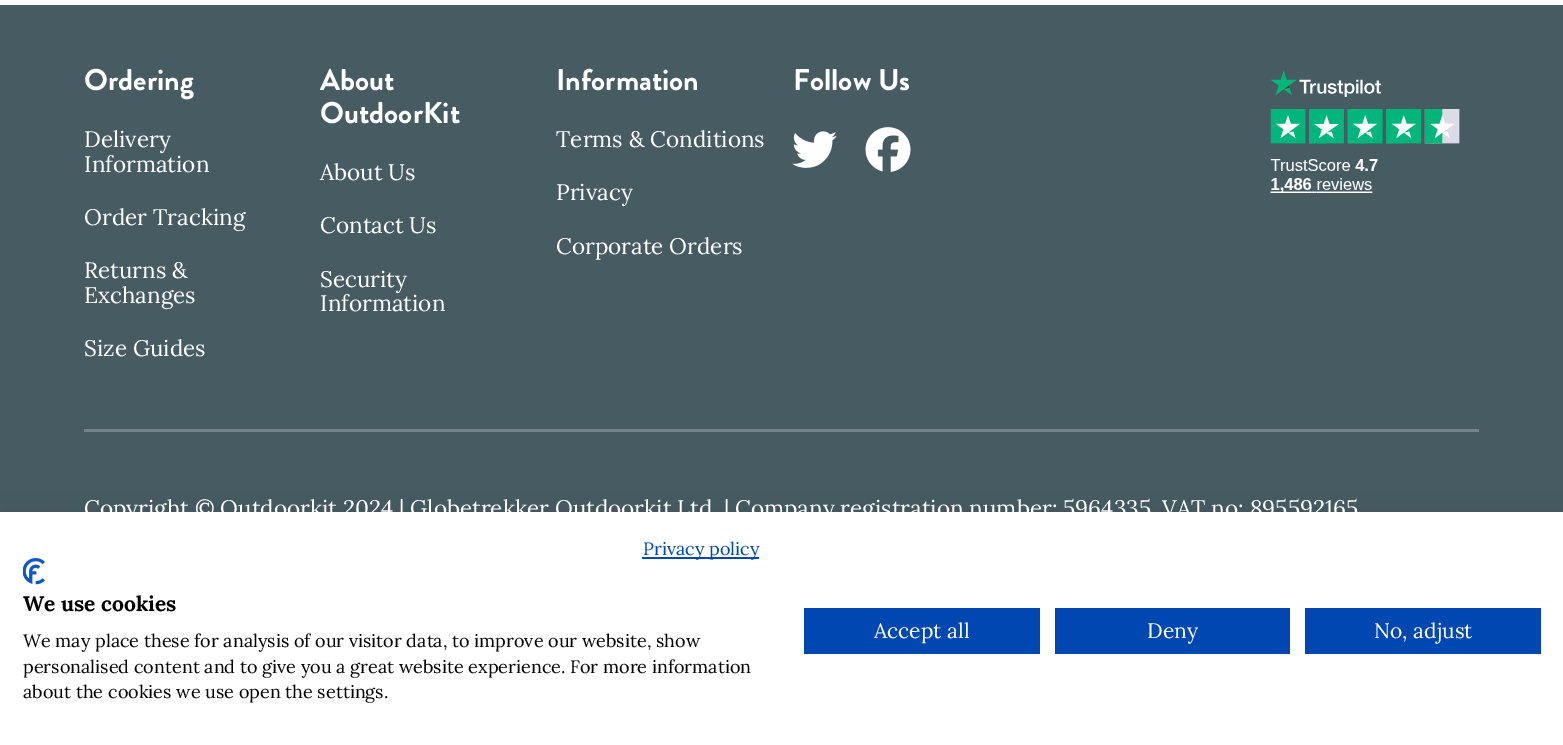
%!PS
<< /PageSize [1563 745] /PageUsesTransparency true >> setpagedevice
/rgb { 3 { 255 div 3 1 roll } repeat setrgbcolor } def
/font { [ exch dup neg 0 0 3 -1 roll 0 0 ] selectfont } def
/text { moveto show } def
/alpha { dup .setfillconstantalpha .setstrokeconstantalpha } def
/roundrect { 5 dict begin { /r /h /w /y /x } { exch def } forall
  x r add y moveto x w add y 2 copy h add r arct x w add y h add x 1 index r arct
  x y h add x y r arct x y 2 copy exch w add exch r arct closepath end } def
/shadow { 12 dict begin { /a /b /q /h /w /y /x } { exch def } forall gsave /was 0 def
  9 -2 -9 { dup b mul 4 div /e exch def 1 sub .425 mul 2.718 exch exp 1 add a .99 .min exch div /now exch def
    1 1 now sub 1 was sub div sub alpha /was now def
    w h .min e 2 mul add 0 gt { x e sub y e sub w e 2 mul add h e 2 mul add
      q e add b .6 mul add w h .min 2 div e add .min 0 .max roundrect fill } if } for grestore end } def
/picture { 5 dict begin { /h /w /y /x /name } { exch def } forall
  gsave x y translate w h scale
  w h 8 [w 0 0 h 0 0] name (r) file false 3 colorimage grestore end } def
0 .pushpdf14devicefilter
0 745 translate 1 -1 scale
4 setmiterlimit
255 255 255 rgb
0 0 1563 745 rectfill
71 91 99 rgb
0 5 1563 507 rectfill
(img_01.rgb) 792 131 45 37 picture
(img_02.rgb) 865 127 46 45 picture
(img_03.rgb) 1270 70 190 123 picture
117 132 138 rgb
84 429 1395 3 rectfill
0 0 0 rgb
0 512 1563 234 0 18 0.1 shadow
255 255 255 rgb
0 512 1563 233 rectfill
0 71 178 rgb
642 557 117 2 rectfill
(img_04.rgb) 23 558 22 27 picture
804 608 236 46 rectfill
1055 608 235 46 rectfill
1305 608 236 46 rectfill
/BrandonGrotesque-Bold 30 font
255 255 255 rgb
(Ordering) 84 90 text
/Lora-Regular 22.5 font
(Delivery) 84 147 text
(Information) 84 172 text
(Order Tracking) 84 225 text
(Returns &) 84 278 text
(Exchanges) 84 303 text
(Size Guides) 84 356 text
/BrandonGrotesque-Bold 30 font
(About) 320 90 text
(OutdoorKit) 320 123 text
/Lora-Regular 22.5 font
(About Us) 320 180 text
(Contact Us) 320 233 text
(Security) 320 287 text
(Information) 320 311 text
/BrandonGrotesque-Bold 30 font
(Information) 556 90 text
/Lora-Regular 22.5 font
(Terms & Conditions) 556 147 text
(Privacy) 556 200 text
(Corporate Orders) 556 254 text
/BrandonGrotesque-Bold 30 font
(Follow Us) 793 90 text
/Lora-Regular 22.5 font
(Copyright © Outdoorkit 2024 | Globetrekker Outdoorkit Ltd. | Company registration number: 5964335. VAT no: 895592165) 84 516 text
/Lora-Regular 18 font
0 71 178 rgb
(Privacy policy) 643 555 text
/Lora-Bold 21 font
0 0 0 rgb
(We use cookies) 23 611 text
/Lora-Regular 18 font
(We may place these for analysis of our visitor data, to improve our website, show) 23 647 text
(personalised content and to give you a great website experience. For more information) 23 673 text
(about the cookies we use open the settings.) 23 698 text
/Lora-Regular 21 font
255 255 255 rgb
(Accept all) 874 638 text
(Deny) 1147 638 text
(No, adjust) 1374 638 text
.poppdf14devicefilter showpage
